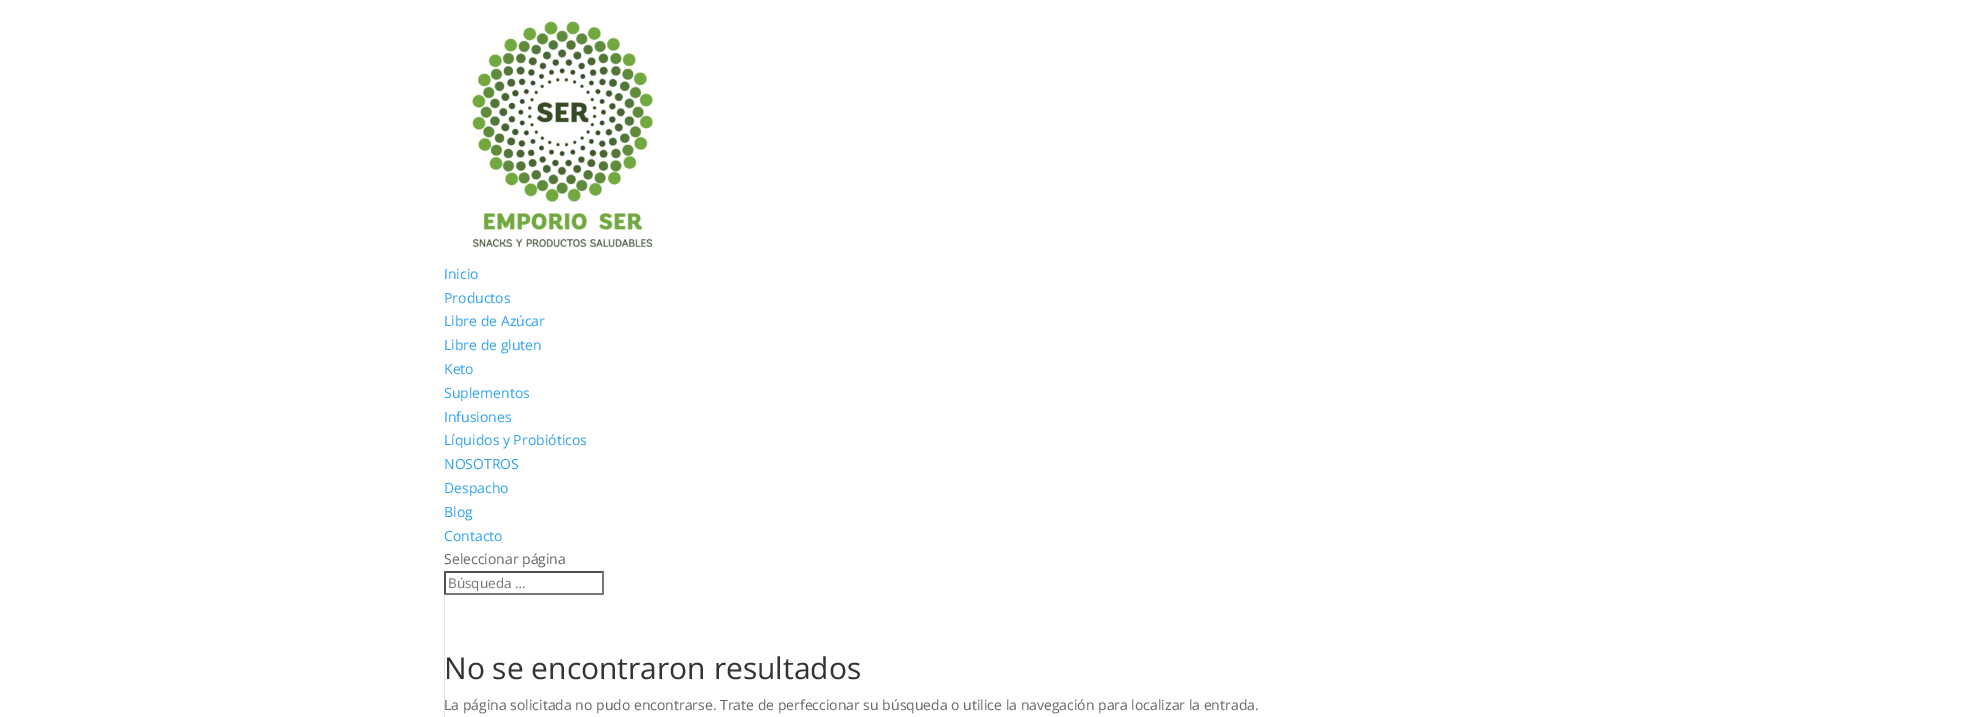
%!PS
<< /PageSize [1967 717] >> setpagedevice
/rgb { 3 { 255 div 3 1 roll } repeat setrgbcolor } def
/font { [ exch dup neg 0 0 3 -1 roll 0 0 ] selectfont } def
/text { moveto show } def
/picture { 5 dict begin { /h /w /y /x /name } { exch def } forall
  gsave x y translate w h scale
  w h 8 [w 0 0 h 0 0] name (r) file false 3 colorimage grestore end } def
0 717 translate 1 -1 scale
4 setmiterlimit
255 255 255 rgb
0 0 1967 717 rectfill
(img_01.rgb) 472 21 181 227 picture
79 79 79 rgb
444 571 moveto 160 0 rlineto -2 2 rlineto -156 0 rlineto closepath fill
118 118 118 rgb
604 571 moveto 0 24 rlineto -2 -2 rlineto 0 -20 rlineto closepath fill
604 595 moveto -160 0 rlineto 2 -2 rlineto 156 0 rlineto closepath fill
79 79 79 rgb
444 595 moveto 0 -24 rlineto 2 2 rlineto 0 20 rlineto closepath fill
/OpenSans-Regular 14 font
46 163 242 rgb
(Inicio) 444 279 text
(Productos) 444 303 text
(Libre de Azúcar) 444 326 text
(Libre de gluten) 444 350 text
(Keto) 444 374 text
(Suplementos) 444 398 text
(Infusiones) 444 422 text
(Líquidos y Probióticos) 444 445 text
(NOSOTROS) 444 469 text
(Despacho) 444 493 text
(Blog) 444 517 text
(Contacto) 444 541 text
102 102 102 rgb
(Seleccionar página) 444 564 text
/OpenSans-Regular 13.5 font
117 117 117 rgb
(Búsqueda …) 448 588 text
/OpenSans-Regular 30 font
51 51 51 rgb
(No se encontraron resultados) 444 679 text
/OpenSans-Regular 14 font
102 102 102 rgb
(La página solicitada no pudo encontrarse. Trate de perfeccionar su búsqueda o utilice la navegación para localizar la entrada.) 444 710 text
226 226 226 rgb
444 595 1 122 rectfill
showpage
